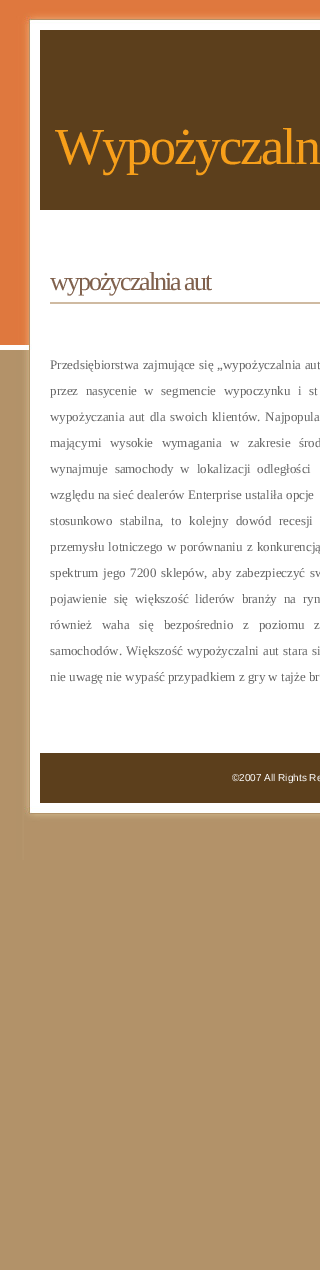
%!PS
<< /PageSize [320 1270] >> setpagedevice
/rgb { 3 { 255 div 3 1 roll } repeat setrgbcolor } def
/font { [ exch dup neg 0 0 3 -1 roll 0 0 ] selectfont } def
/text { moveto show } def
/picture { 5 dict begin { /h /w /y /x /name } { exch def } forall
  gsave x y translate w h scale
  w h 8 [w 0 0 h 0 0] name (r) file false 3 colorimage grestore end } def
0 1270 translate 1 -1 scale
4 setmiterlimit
178 146 105 rgb
0 0 320 1270 rectfill
(img_01.rgb) 0 350 320 510 picture
(img_02.rgb) 0 0 320 350 picture
(img_03.rgb) 24 806 296 54 picture
92 63 28 rgb
40 30 280 180 rectfill
207 186 161 rgb
50 302 270 2 rectfill
92 63 28 rgb
40 753 280 50 rectfill
/LiberationSerif-Regular 52 font
247 159 26 rgb
55 164 moveto -2 0 (Wypożyczaln) ashow
/LiberationSerif-Regular 26 font
128 97 77 rgb
50 290 moveto -2 0 (wypożyczalnia aut) ashow
/LiberationSerif-Regular 13 font
102 102 102 rgb
50 369 moveto 0.5 0 32 (Przedsiębiorstwa zajmujące się „wypożyczalnia aut) widthshow
50 395 moveto 4.25 0 32 (przez nasycenie w segmencie wypoczynku i st) widthshow
50 421 moveto 1.5 0 32 (wypożyczania aut dla swoich klientów. Najpopula) widthshow
50 447 moveto 5.25 0 32 (mającymi wysokie wymagania w zakresie środ) widthshow
50 473 moveto 3.5 0 32 (wynajmuje samochody w lokalizacji odległości) widthshow
50 499 moveto 0.25 0 32 (względu na sieć dealerów Enterprise ustaliła opcje) widthshow
50 525 moveto 4.5 0 32 (stosunkowo stabilna, to kolejny dowód recesji) widthshow
50 551 moveto 1 0 32 (przemysłu lotniczego w porównaniu z konkurencją) widthshow
50 577 moveto 1.5 0 32 (spektrum jego 7200 sklepów, aby zabezpieczyć sw) widthshow
50 603 moveto 3.5 0 32 (pojawienie się większość liderów branży na ryn) widthshow
50 629 moveto 6.75 0 32 (również waha się bezpośrednio z poziomu z) widthshow
50 655 moveto 1 0 32 (samochodów. Większość wypożyczalni aut stara si) widthshow
(nie uwagę nie wypaść przypadkiem z gry w tajże br) 50 681 text
/LiberationSans-Regular 10 font
255 255 255 rgb
(©2007 All Rights Re) 232 781 text
showpage
